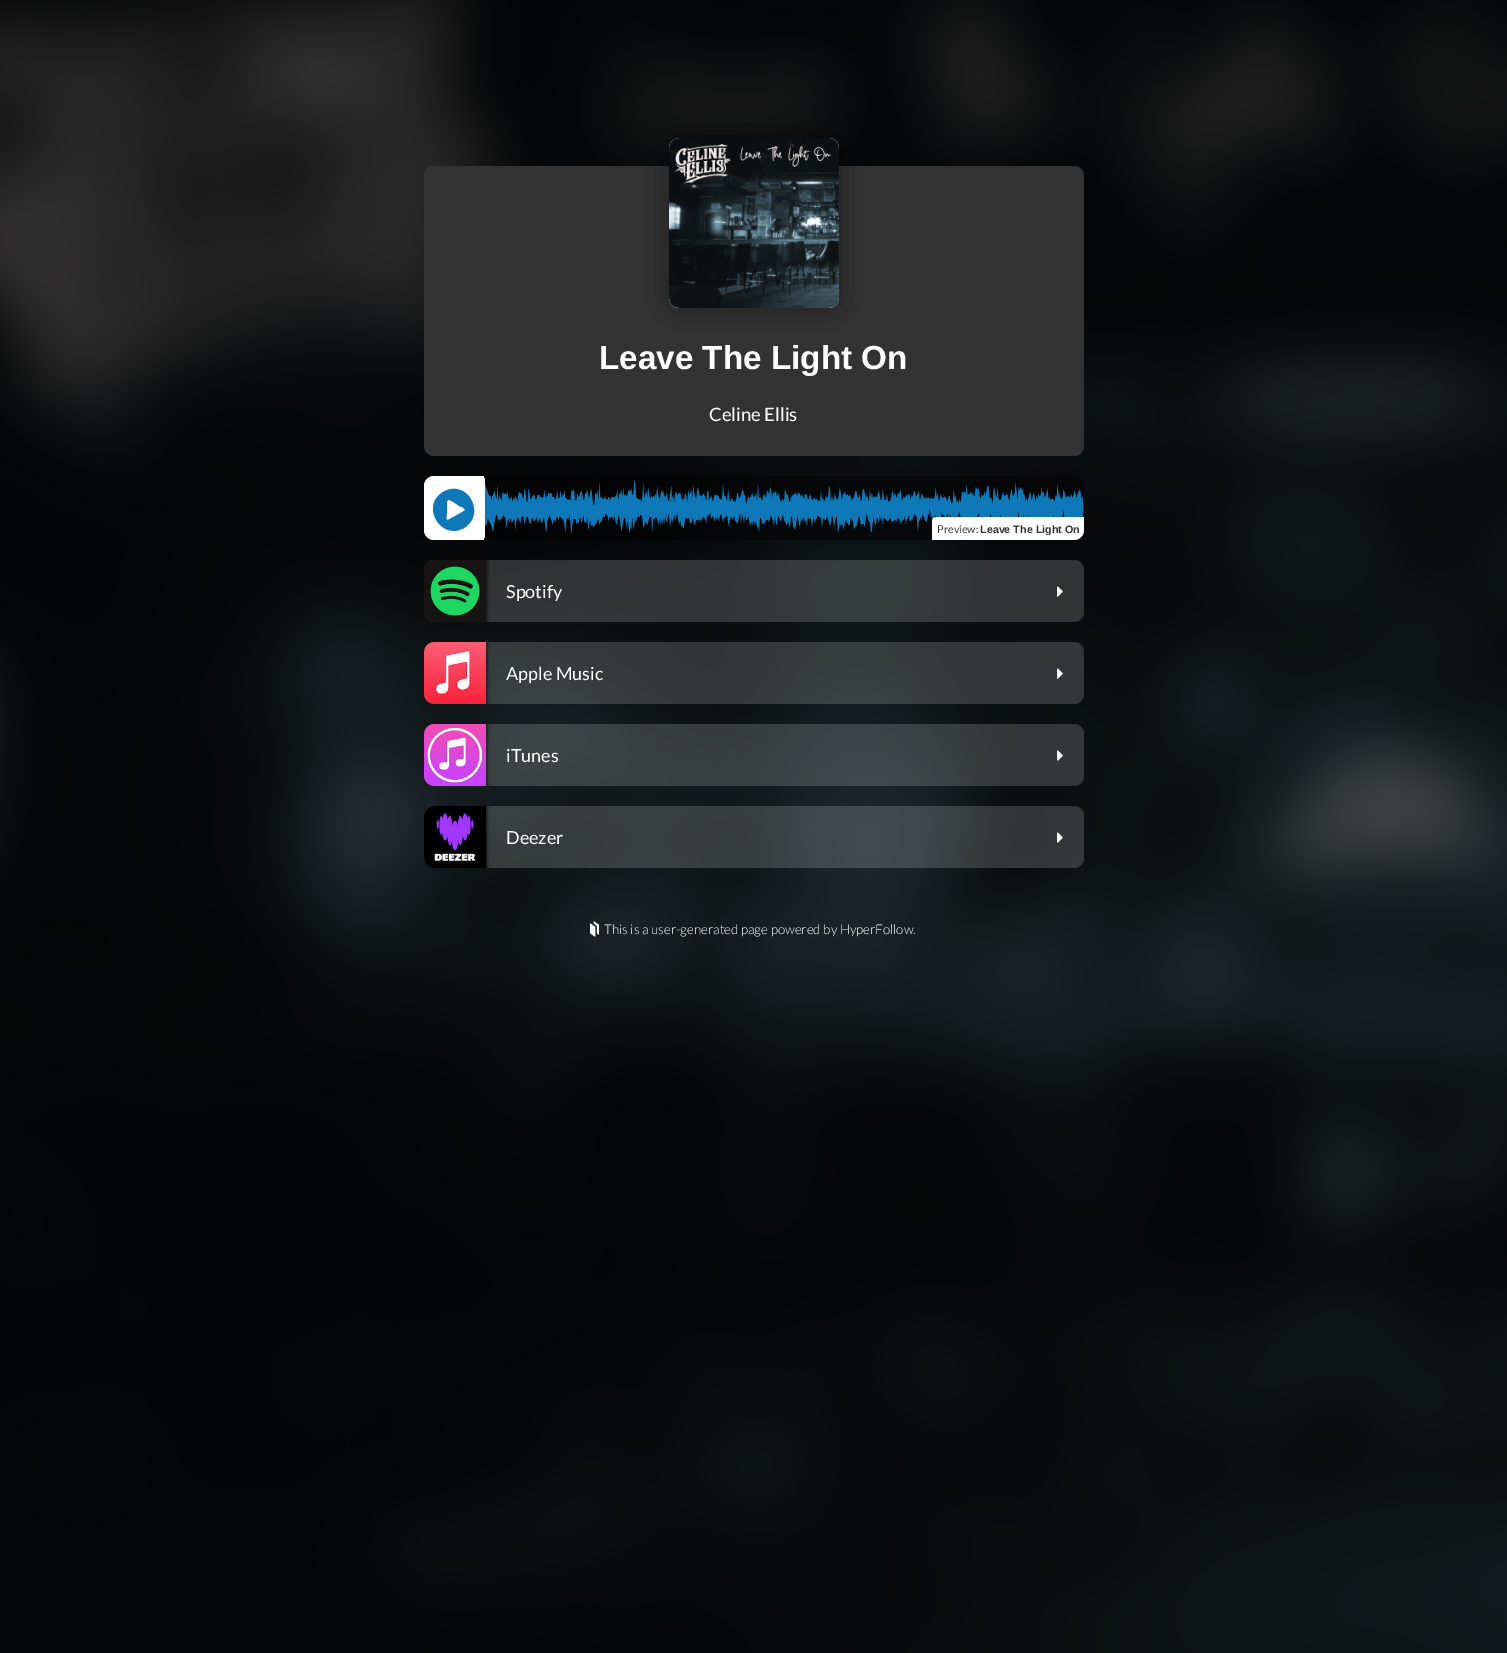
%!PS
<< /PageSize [1507 1653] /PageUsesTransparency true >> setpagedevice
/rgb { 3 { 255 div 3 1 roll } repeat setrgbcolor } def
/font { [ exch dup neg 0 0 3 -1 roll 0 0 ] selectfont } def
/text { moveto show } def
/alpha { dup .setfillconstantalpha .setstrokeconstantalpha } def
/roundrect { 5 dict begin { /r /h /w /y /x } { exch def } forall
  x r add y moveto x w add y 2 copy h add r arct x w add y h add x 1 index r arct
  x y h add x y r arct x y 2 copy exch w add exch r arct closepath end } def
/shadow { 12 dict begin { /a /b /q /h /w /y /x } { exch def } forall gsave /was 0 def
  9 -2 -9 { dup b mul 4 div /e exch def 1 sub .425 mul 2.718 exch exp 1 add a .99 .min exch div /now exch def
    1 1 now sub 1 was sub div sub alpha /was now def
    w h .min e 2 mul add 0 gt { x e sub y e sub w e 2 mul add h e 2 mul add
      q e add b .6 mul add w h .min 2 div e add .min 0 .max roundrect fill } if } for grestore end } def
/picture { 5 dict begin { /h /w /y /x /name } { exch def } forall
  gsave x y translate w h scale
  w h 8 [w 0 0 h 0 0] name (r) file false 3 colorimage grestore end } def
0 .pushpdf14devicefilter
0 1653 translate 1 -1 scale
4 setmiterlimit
0 0 0 rgb
0 0 1507 1653 rectfill
(img_01.rgb) 0 0 1507 1653 picture
51 51 51 rgb
424 166 660 290 10 roundrect fill
0 0 0 rgb
669 138 170 170 10 12.5 0.35 shadow
204 204 204 rgb
669 138 170 170 10 roundrect fill
(img_02.rgb) 669 138 170 170 picture
255 255 255 rgb
434 476 moveto 50 0 rlineto 0 64 rlineto -50 0 rlineto -5.5 0 -10 -4.5 -10 -10 rcurveto 0 -44 rlineto 0 -5.5 4.5 -10 10 -10 rcurveto closepath fill
15 120 184 rgb
443 492 moveto 24 -14 44 22 21 36 rcurveto -23 13 -44 -22 -21 -36 rcurveto closepath 464 511 moveto 4 -2 -5 -5 -5 -5 rcurveto -2 -2 -10 -7 -11 -6 rcurveto -2 1 -1 11 -1 13 rcurveto 0 1 -2 7 1 7 rcurveto closepath fill
0.5 alpha
0 0 0 rgb
484 476 moveto 590 0 rlineto 5.5 0 10 4.5 10 10 rcurveto 0 44 rlineto 0 5.5 -4.5 10 -10 10 rcurveto -590 0 rlineto closepath fill
1 alpha
255 255 255 rgb
484 478 1 60 rectfill
(img_03.rgb) 485 481 599 54 picture
936 517 moveto 148 0 rlineto 0 13 rlineto 0 5.5 -4.5 10 -10 10 rcurveto -142 0 rlineto 0 -19 rlineto 0 -2 2 -4 4 -4 rcurveto closepath fill
0.17 alpha
424 560 660 62 10 roundrect fill
gsave
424 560 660 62 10 roundrect clip newpath
1 alpha
0 0 0 rgb
424 560 62 62 0 2.5 1 shadow
grestore
1 alpha
(img_04.rgb) 424 560 62 62 picture
(img_05.rgb) 1057 586 6 11 picture
0.17 alpha
424 642 660 62 10 roundrect fill
gsave
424 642 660 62 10 roundrect clip newpath
1 alpha
0 0 0 rgb
424 642 62 62 0 2.5 1 shadow
grestore
1 alpha
(img_06.rgb) 424 642 62 62 picture
(img_07.rgb) 1057 668 6 11 picture
0.17 alpha
424 724 660 62 10 roundrect fill
gsave
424 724 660 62 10 roundrect clip newpath
1 alpha
0 0 0 rgb
424 724 62 62 0 2.5 1 shadow
grestore
1 alpha
(img_08.rgb) 424 724 62 62 picture
(img_07.rgb) 1057 750 6 11 picture
0.17 alpha
424 806 660 62 10 roundrect fill
gsave
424 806 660 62 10 roundrect clip newpath
1 alpha
0 0 0 rgb
424 806 62 62 0 2.5 1 shadow
grestore
1 alpha
(img_09.rgb) 424 806 62 62 picture
(img_10.rgb) 1057 832 6 11 picture
(img_11.rgb) 590 921 9 16 picture
/LiberationSans-Bold 33.25 font
(Leave The Light On) 599 369 text
/Lato-Regular 18.5 font
(Celine Ellis) 709 421 text
/Lato-Regular 10.75 font
51 51 51 rgb
(Preview:) 937 533 text
gsave
937 522 142 13 rectclip
/LiberationSans-Bold 10.75 font
(Leave The Light On) 980 533 text
grestore
/Lato-Regular 18 font
255 255 255 rgb
(Spotify) 506 598 text
(Apple Music) 506 680 text
(iTunes) 506 762 text
(Deezer) 506 844 text
/Lato-Light 13.3 font
(This is a user-generated page powered by HyperFollow.) 604 934 text
.poppdf14devicefilter showpage
